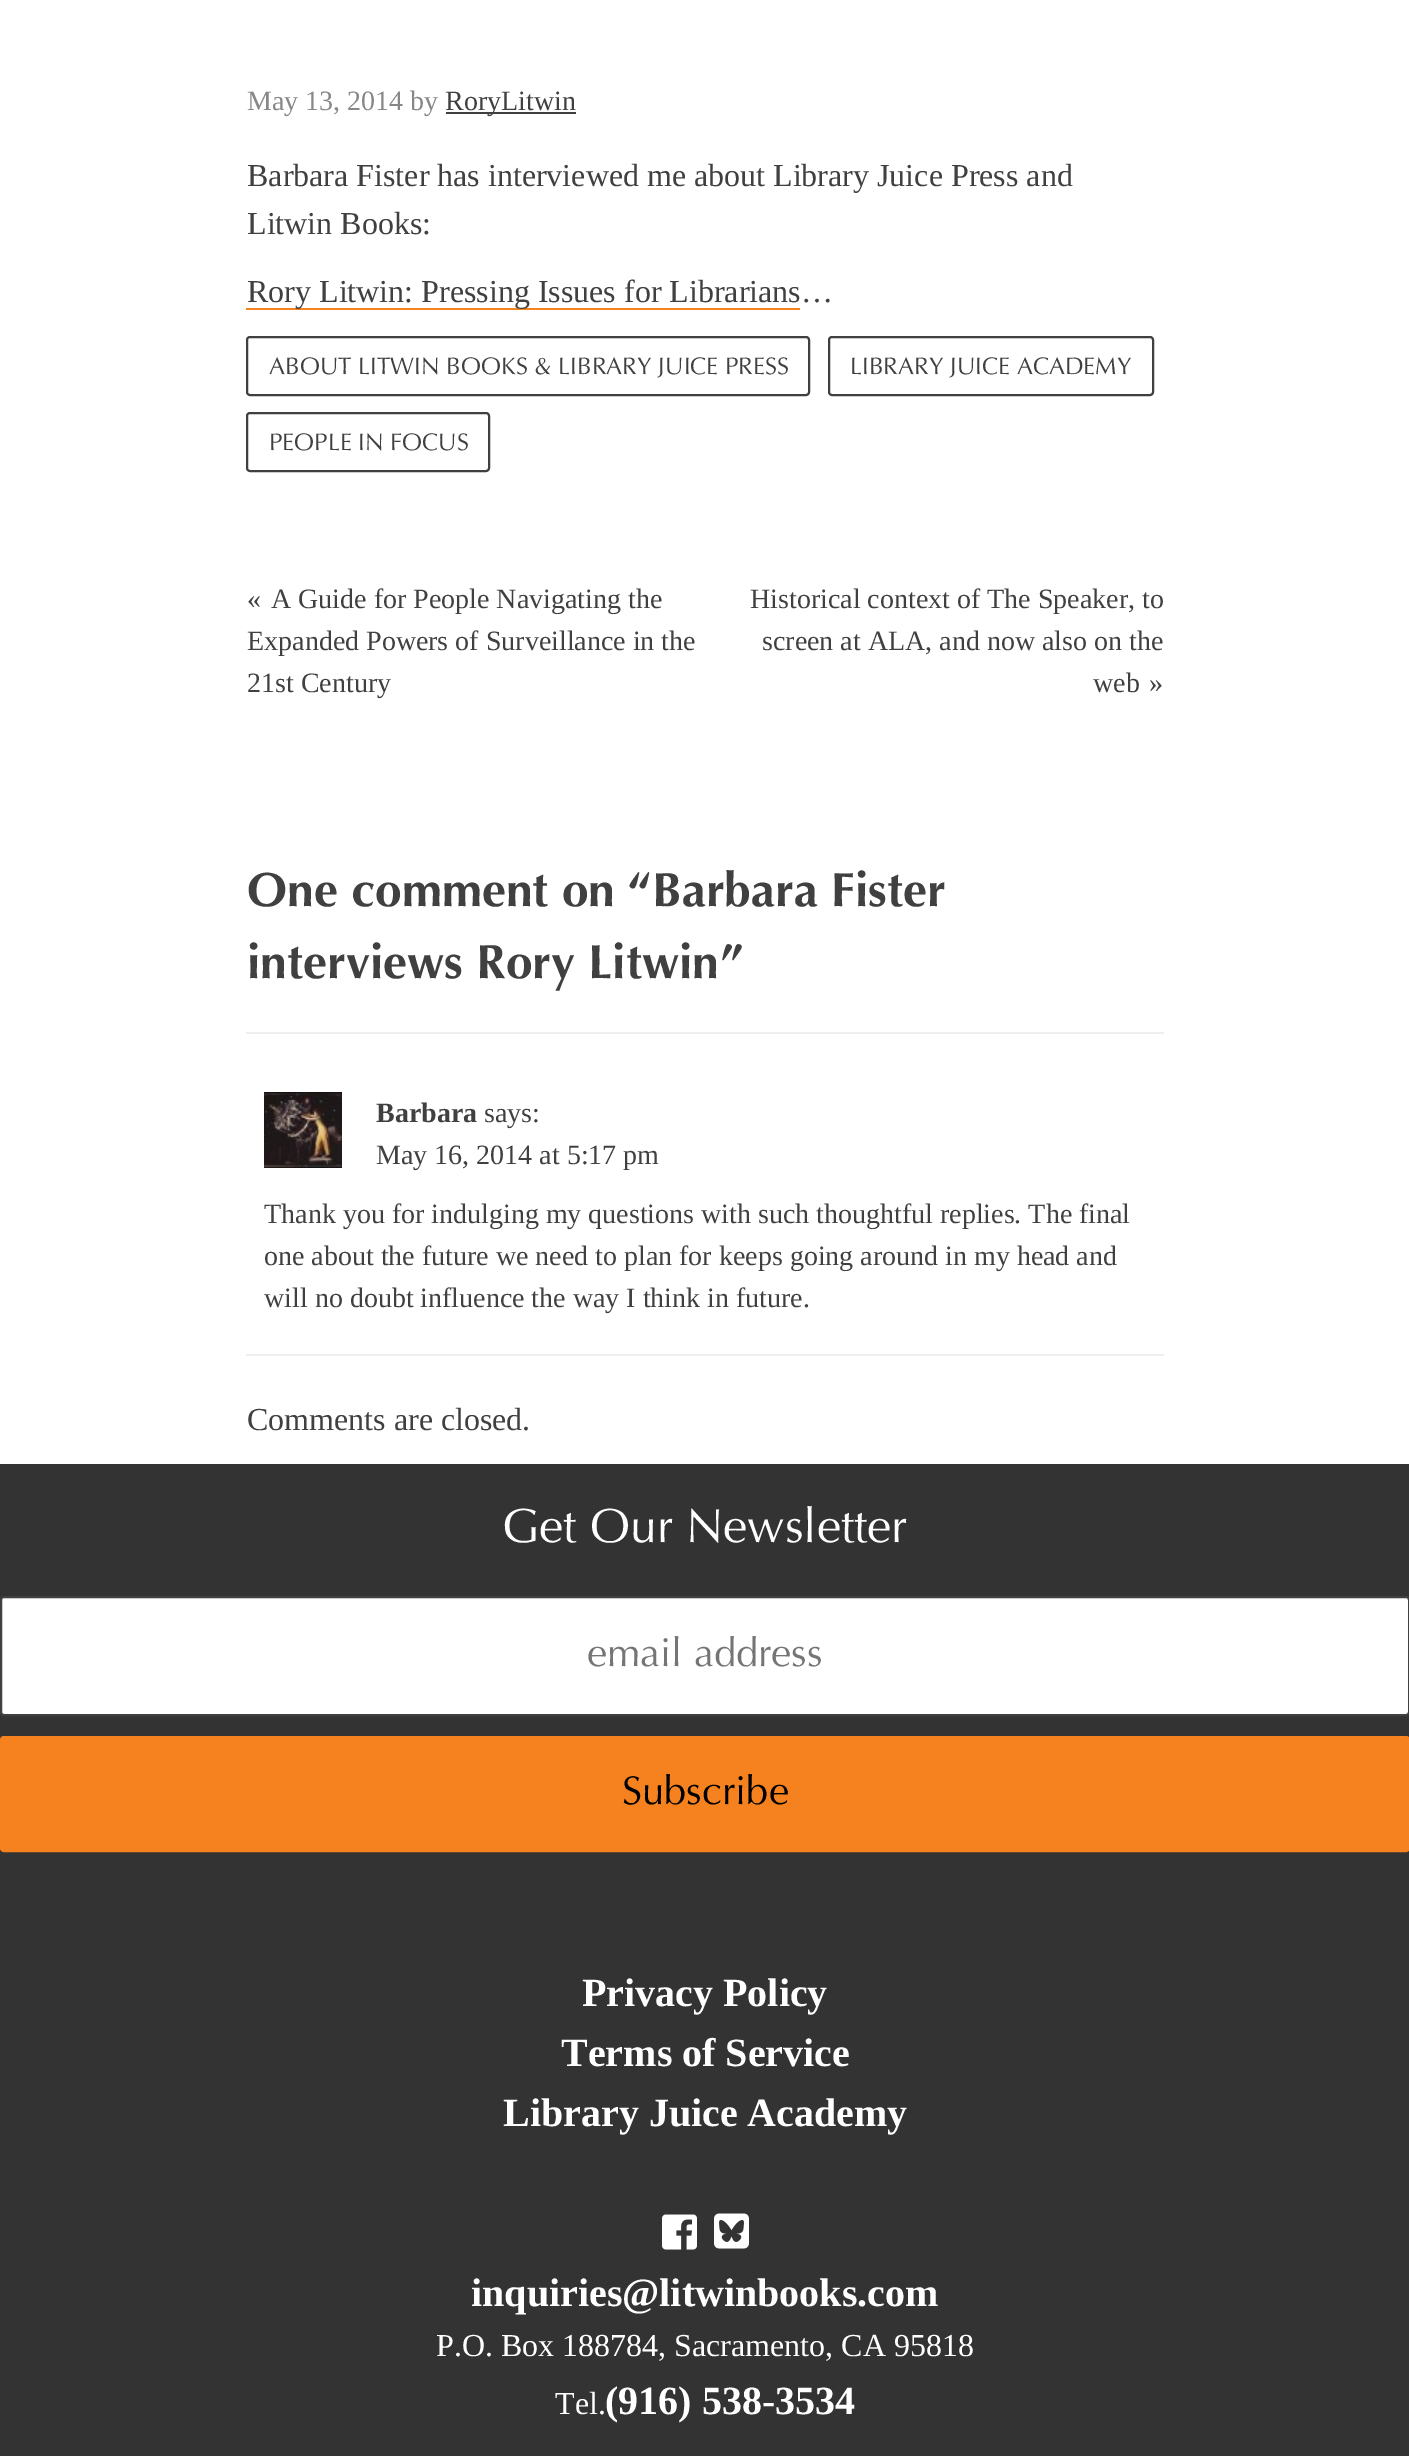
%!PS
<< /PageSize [1409 2456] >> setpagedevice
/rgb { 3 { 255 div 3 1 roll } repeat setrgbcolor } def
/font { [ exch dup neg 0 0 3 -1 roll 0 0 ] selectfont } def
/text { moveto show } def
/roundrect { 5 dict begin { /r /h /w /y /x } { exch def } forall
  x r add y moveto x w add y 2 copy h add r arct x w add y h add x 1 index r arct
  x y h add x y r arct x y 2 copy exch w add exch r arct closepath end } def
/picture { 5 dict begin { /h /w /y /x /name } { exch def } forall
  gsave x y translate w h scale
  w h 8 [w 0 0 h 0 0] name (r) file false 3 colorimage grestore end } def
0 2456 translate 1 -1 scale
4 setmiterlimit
255 255 255 rgb
0 0 1409 2456 rectfill
64 64 64 rgb
446 112 130 2 rectfill
245 130 31 rgb
246 308 554 2 rectfill
64 64 64 rgb
2 setlinewidth
247 337 562 58 3 roundrect stroke
829 337 324 58 3 roundrect stroke
247 413 242 58 3 roundrect stroke
238 238 238 rgb
246 1032 918 2 rectfill
246 1354 918 2 rectfill
(img_01.rgb) 264 1092 78 76 picture
51 51 51 rgb
0 1464 1409 992 rectfill
255 255 255 rgb
1 1597 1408 118 3 roundrect gsave fill grestore
64 64 64 rgb
stroke
245 130 31 rgb
2 1738 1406 112 2 roundrect gsave fill grestore
4 setlinewidth
stroke
(img_02.rgb) 662 2214 35 36 picture
(img_03.rgb) 714 2213 35 36 picture
/LiberationSerif-Regular 28 font
135 135 135 rgb
(May 13, 2014 by) 247 110 text
64 64 64 rgb
(RoryLitwin) 445 110 text
/LiberationSerif-Regular 32 font
(Barbara Fister has interviewed me about Library Juice Press and) 247 186 text
(Litwin Books:) 247 234 text
(Rory Litwin: Pressing Issues for Librarians…) 247 302 text
/Optima-Regular 24 font
(ABOUT LITWIN BOOKS & LIBRARY JUICE PRESS) 269 374 text
(LIBRARY JUICE ACADEMY) 850 374 text
(PEOPLE IN FOCUS) 269 450 text
/LiberationSerif-Regular 28 font
(«) 247 608 text
(A Guide for People Navigating the) 271 608 text
(Expanded Powers of Surveillance in the) 247 650 text
(21st Century) 247 692 text
(Historical context of The Speaker, to) 750 608 text
(screen at ALA, and now also on the) 762 650 text
(web) 1093 692 text
(») 1149 692 text
/Optima-Bold 48 font
(One comment on “Barbara Fister) 247 906 text
(interviews Rory Litwin”) 247 978 text
/LiberationSerif-Bold 28 font
(Barbara) 376 1122 text
/LiberationSerif-Regular 28 font
(says:) 484 1122 text
(May 16, 2014 at 5:17 pm) 376 1164 text
(Thank you for indulging my questions with such thoughtful replies. The final) 264 1223 text
(one about the future we need to plan for keeps going around in my head and) 264 1265 text
(will no doubt influence the way I think in future.) 264 1307 text
/LiberationSerif-Regular 32 font
(Comments are closed.) 247 1430 text
/Optima-Regular 48 font
255 255 255 rgb
(Get Our Newsletter) 502 1542 text
/Optima-Regular 40 font
117 117 117 rgb
(email address) 587 1666 text
0 0 0 rgb
(Subscribe) 622 1804 text
/LiberationSerif-Bold 40 font
255 255 255 rgb
(Privacy Policy) 582 2006 text
(Terms of Service) 561 2066 text
(Library Juice Academy) 503 2126 text
(inquiries@litwinbooks.com) 471 2306 text
/LiberationSerif-Regular 32 font
(P.O. Box 188784, Sacramento, CA 95818) 436 2356 text
(Tel.) 555 2414 text
/LiberationSerif-Bold 40 font
(\(916\) 538-3534) 605 2414 text
showpage
